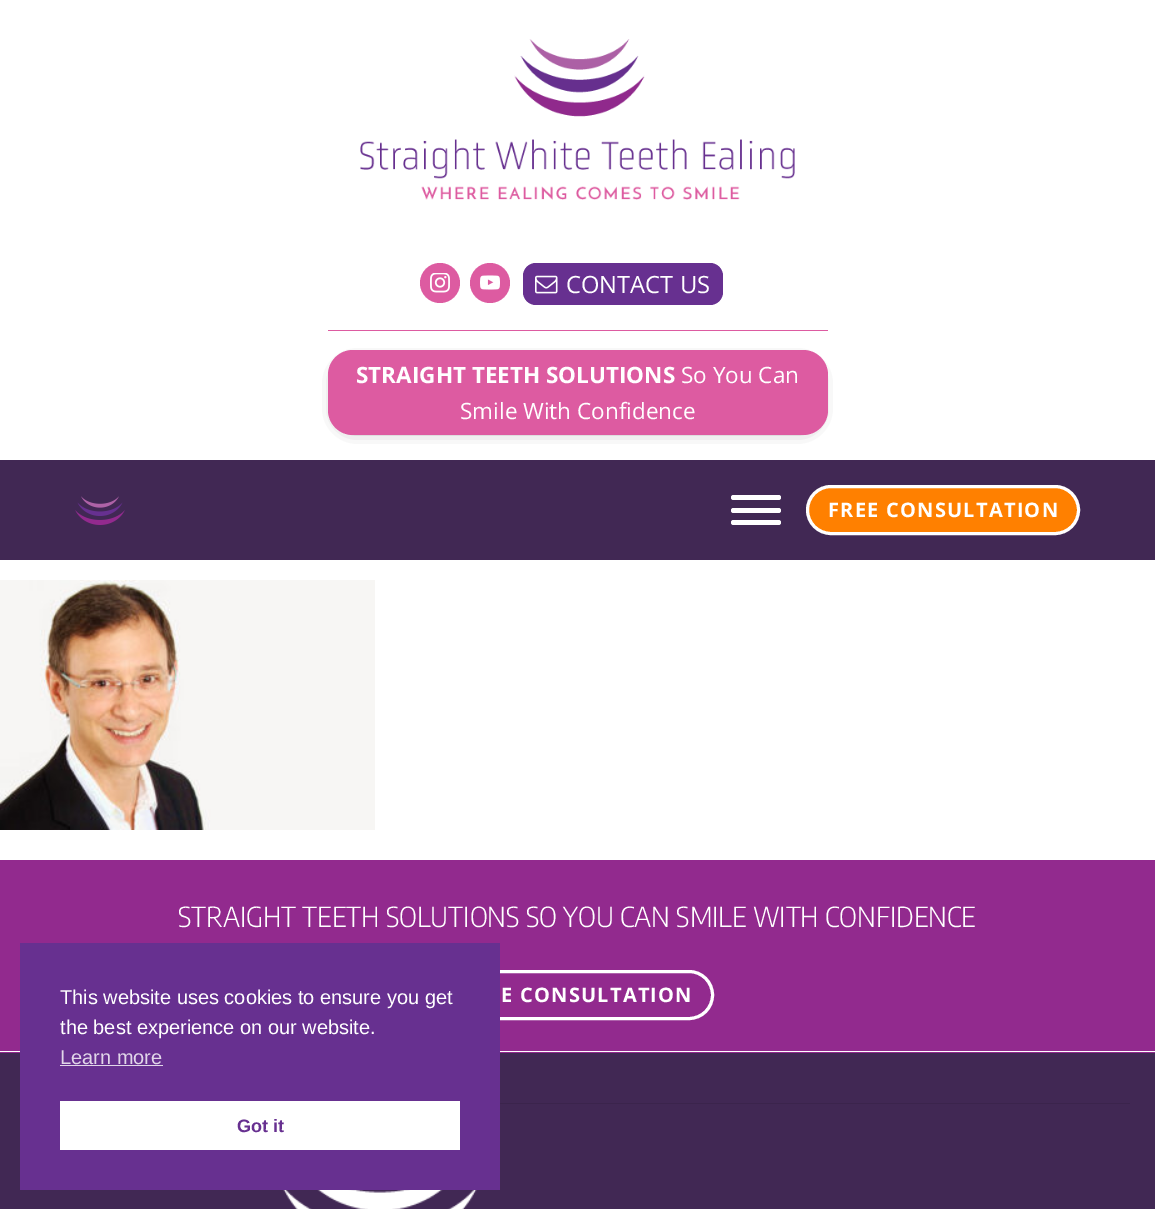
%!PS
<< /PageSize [1155 1209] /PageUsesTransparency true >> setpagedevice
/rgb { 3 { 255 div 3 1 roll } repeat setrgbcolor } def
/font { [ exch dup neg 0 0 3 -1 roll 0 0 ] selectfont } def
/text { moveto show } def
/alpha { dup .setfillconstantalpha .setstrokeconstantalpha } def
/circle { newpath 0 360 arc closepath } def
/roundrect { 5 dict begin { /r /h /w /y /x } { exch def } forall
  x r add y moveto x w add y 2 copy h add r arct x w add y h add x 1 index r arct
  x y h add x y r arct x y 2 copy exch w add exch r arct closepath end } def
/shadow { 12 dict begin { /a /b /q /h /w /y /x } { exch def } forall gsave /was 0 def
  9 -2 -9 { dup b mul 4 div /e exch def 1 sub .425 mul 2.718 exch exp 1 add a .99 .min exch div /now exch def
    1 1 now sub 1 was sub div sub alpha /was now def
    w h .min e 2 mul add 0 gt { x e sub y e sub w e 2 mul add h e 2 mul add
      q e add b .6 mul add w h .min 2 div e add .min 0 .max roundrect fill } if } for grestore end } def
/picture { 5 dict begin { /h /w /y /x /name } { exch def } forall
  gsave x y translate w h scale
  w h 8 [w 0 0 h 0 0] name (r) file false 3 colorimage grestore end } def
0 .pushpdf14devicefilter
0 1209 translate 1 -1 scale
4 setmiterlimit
255 255 255 rgb
0 0 1155 1209 rectfill
(img_01.rgb) 360 39 435 161 picture
221 91 161 rgb
440 283 20 circle fill
(img_02.rgb) 430 273 20 20 picture
490 283 20 circle fill
(img_03.rgb) 480 275 20 15 picture
103 48 144 rgb
523 263 200 42 13 roundrect fill
(img_04.rgb) 535 275 23 19 picture
221 91 161 rgb
328 330 500 1 rectfill
34 34 34 rgb
340 366 475 60 13 8 1 shadow
221 91 161 rgb
328 350 500 85 25 roundrect fill
65 40 84 rgb
0 460 1155 100 rectfill
(img_05.rgb) 75 496 50 29 picture
255 255 255 rgb
731 495 50 5 2.5 roundrect fill
731 508 50 5 2.5 roundrect fill
731 520 50 5 2.5 roundrect fill
255 128 0 rgb
807.5 486.5 271 47 23.5 roundrect gsave fill grestore
255 255 255 rgb
3 setlinewidth
stroke
(img_06.rgb) 0 580 375 250 picture
146 42 142 rgb
0 860 1155 193 rectfill
255 255 255 rgb
0 1051 1155 1 rectfill
442.5 971.5 270 47 23.5 roundrect stroke
65 40 84 rgb
0 1053 1155 156 rectfill
103 48 144 rgb
20 943 480 247 rectfill
225 214 233 rgb
60 1065 103 1 rectfill
255 255 255 rgb
60 1101 400 49 rectfill
59 36 76 rgb
500 1103 630 1 rectfill
(img_07.rgb) 283 1190 194 19 picture
/OpenSans-Regular 23.75 font
255 255 255 rgb
(CONTACT US) 566 293 text
/OpenSans-Bold 22.5 font
(STRAIGHT TEETH SOLUTIONS) 356 383 text
/OpenSans-Regular 22.5 font
(So You Can) 681 383 text
(Smile With Confidence) 460 419 text
/OpenSans-Bold 20 font
828 517 moveto 1.25 0 (FREE CONSULTATION) ashow
/EncodeSansSemiCondensed-Light 27.5 font
(STRAIGHT TEETH SOLUTIONS SO YOU CAN SMILE WITH CONFIDENCE) 178 927 text
/OpenSans-Bold 20 font
501 1002 moveto 1.25 0 (E CONSULTATION) ashow
/LiberationSans-Regular 20 font
(This website uses cookies to ensure you get) 60 1004 text
(the best experience on our website.) 60 1034 text
225 214 233 rgb
(Learn more) 60 1064 text
/LiberationSans-Bold 18 font
103 48 144 rgb
(Got it) 237 1132 text
.poppdf14devicefilter showpage
